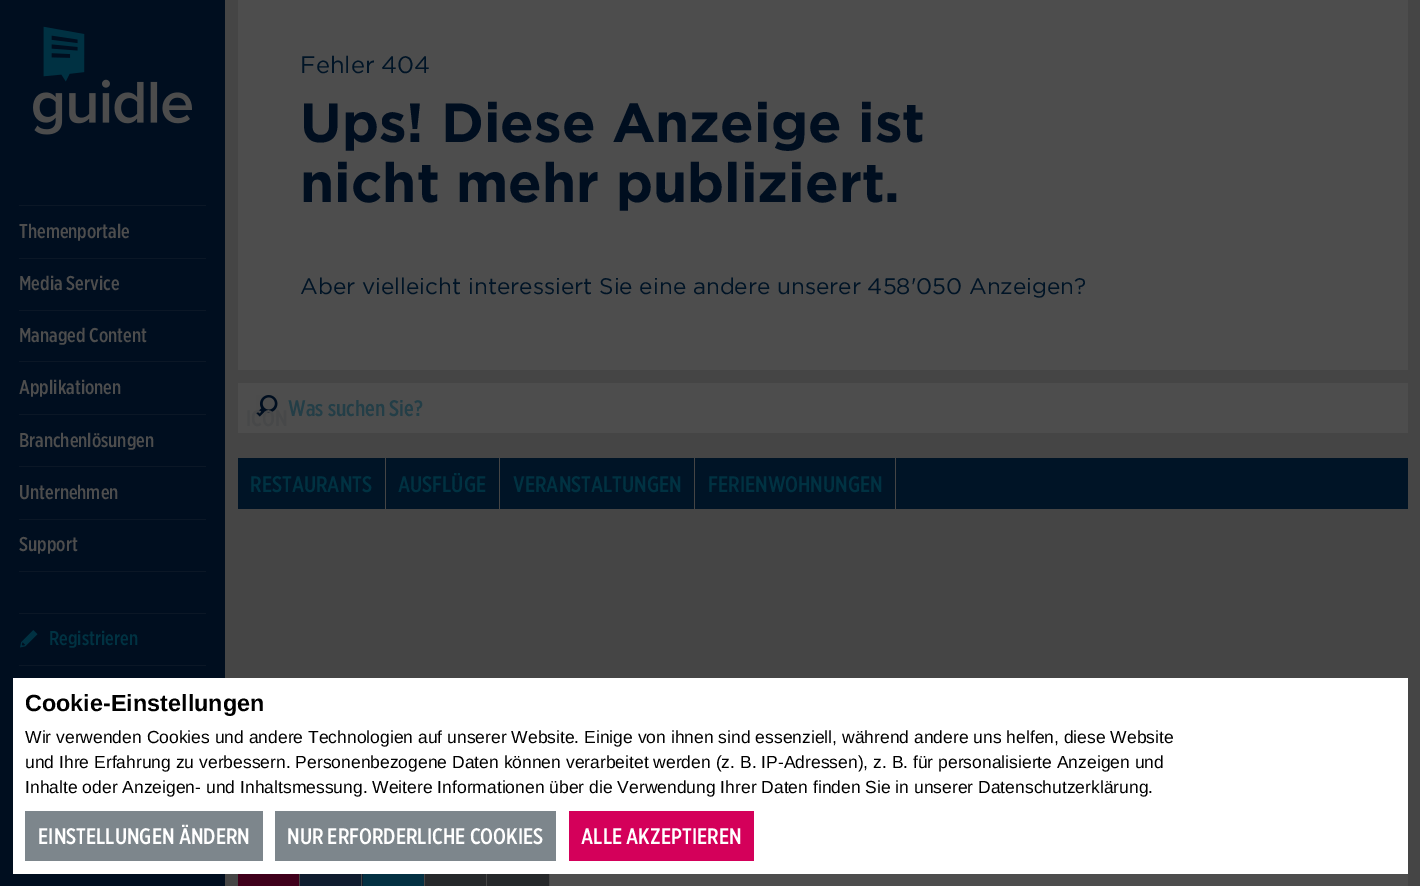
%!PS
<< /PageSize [1420 886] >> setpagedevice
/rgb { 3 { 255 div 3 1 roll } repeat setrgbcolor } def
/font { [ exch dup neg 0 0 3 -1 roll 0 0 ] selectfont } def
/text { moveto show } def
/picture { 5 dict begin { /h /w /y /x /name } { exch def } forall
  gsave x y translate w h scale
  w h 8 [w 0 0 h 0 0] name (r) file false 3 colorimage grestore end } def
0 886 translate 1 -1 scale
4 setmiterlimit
69 69 69 rgb
0 0 1420 886 rectfill
0 14 31 rgb
0 0 225 886 rectfill
(img_01.rgb) 33 26 159 109 picture
11 23 38 rgb
19 205 187 1 rectfill
19 258 187 1 rectfill
19 310 187 1 rectfill
19 361 187 1 rectfill
19 414 187 1 rectfill
19 466 187 1 rectfill
19 519 187 1 rectfill
19 571 187 1 rectfill
19 613 187 1 rectfill
(img_02.rgb) 20 630 18 18 picture
19 665 187 1 rectfill
77 77 77 rgb
238 0 1170 370 rectfill
238 383 1170 50 rectfill
(img_03.rgb) 256 395 22 22 picture
0 20 38 rgb
238 458 1170 51 rectfill
69 69 69 rgb
385 458 1 51 rectfill
499 458 1 51 rectfill
694 458 1 51 rectfill
895 458 1 51 rectfill
77 77 77 rgb
550 874 858 12 rectfill
64 0 27 rgb
238 874 61 12 rectfill
15 29 47 rgb
300 874 63 12 rectfill
69 69 69 rgb
361 874 1 12 rectfill
4 49 67 rgb
363 874 61 12 rectfill
38 40 42 rgb
425 874 124 12 rectfill
69 69 69 rgb
486 874 1 12 rectfill
255 255 255 rgb
13 678 1395 196 rectfill
125 134 140 rgb
25 811 238 50 rectfill
275 811 281 50 rectfill
212 0 90 rgb
569 811 185 50 rectfill
/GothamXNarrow-Medium 20 font
77 77 77 rgb
(Themenportale) 19 238 text
(Media Service) 19 290 text
(Managed Content) 19 342 text
(Applikationen) 19 394 text
(Branchenlösungen) 19 447 text
(Unternehmen) 19 499 text
(Support) 19 551 text
0 50 66 rgb
(Registrieren) 49 645 text
/Gotham-Regular 23.75 font
0 20 38 rgb
(Fehler 404) 300 73 text
/Gotham-Bold 55 font
0 14 31 rgb
(Ups! Diese Anzeige ist) 300 142 text
(nicht mehr publiziert.) 300 202 text
/Gotham-Regular 22.5 font
0 20 38 rgb
(Aber vielleicht interessiert Sie eine andere unserer 458'050 Anzeigen?) 300 294 text
/GothamXNarrow-Medium 22.5 font
71 72 73 rgb
(ICON) 246 426 text
35 62 71 rgb
(Was suchen Sie?) 288 416 text
0 50 66 rgb
(RESTAURANTS) 250 492 text
(AUSFLÜGE) 398 492 text
(VERANSTALTUNGEN) 513 492 text
(FERIENWOHNUNGEN) 708 492 text
/LiberationSans-Bold 23.4 font
0 0 0 rgb
(Cookie-Einstellungen) 25 711 text
/LiberationSans-Regular 17.5 font
(Wir verwenden Cookies und andere Technologien auf unserer Website. Einige von ihnen sind essenziell, während andere uns helfen, diese Website) 25 743 text
(und Ihre Erfahrung zu verbessern. Personenbezogene Daten können verarbeitet werden \(z. B. IP-Adressen\), z. B. für personalisierte Anzeigen und) 25 768 text
(Inhalte oder Anzeigen- und Inhaltsmessung. Weitere Informationen über die Verwendung Ihrer Daten finden Sie in unserer Datenschutzerklärung.) 25 793 text
/GothamXNarrow-Medium 22.5 font
255 255 255 rgb
(EINSTELLUNGEN ÄNDERN) 38 844 text
(NUR ERFORDERLICHE COOKIES) 287 844 text
(ALLE AKZEPTIEREN) 581 844 text
showpage
